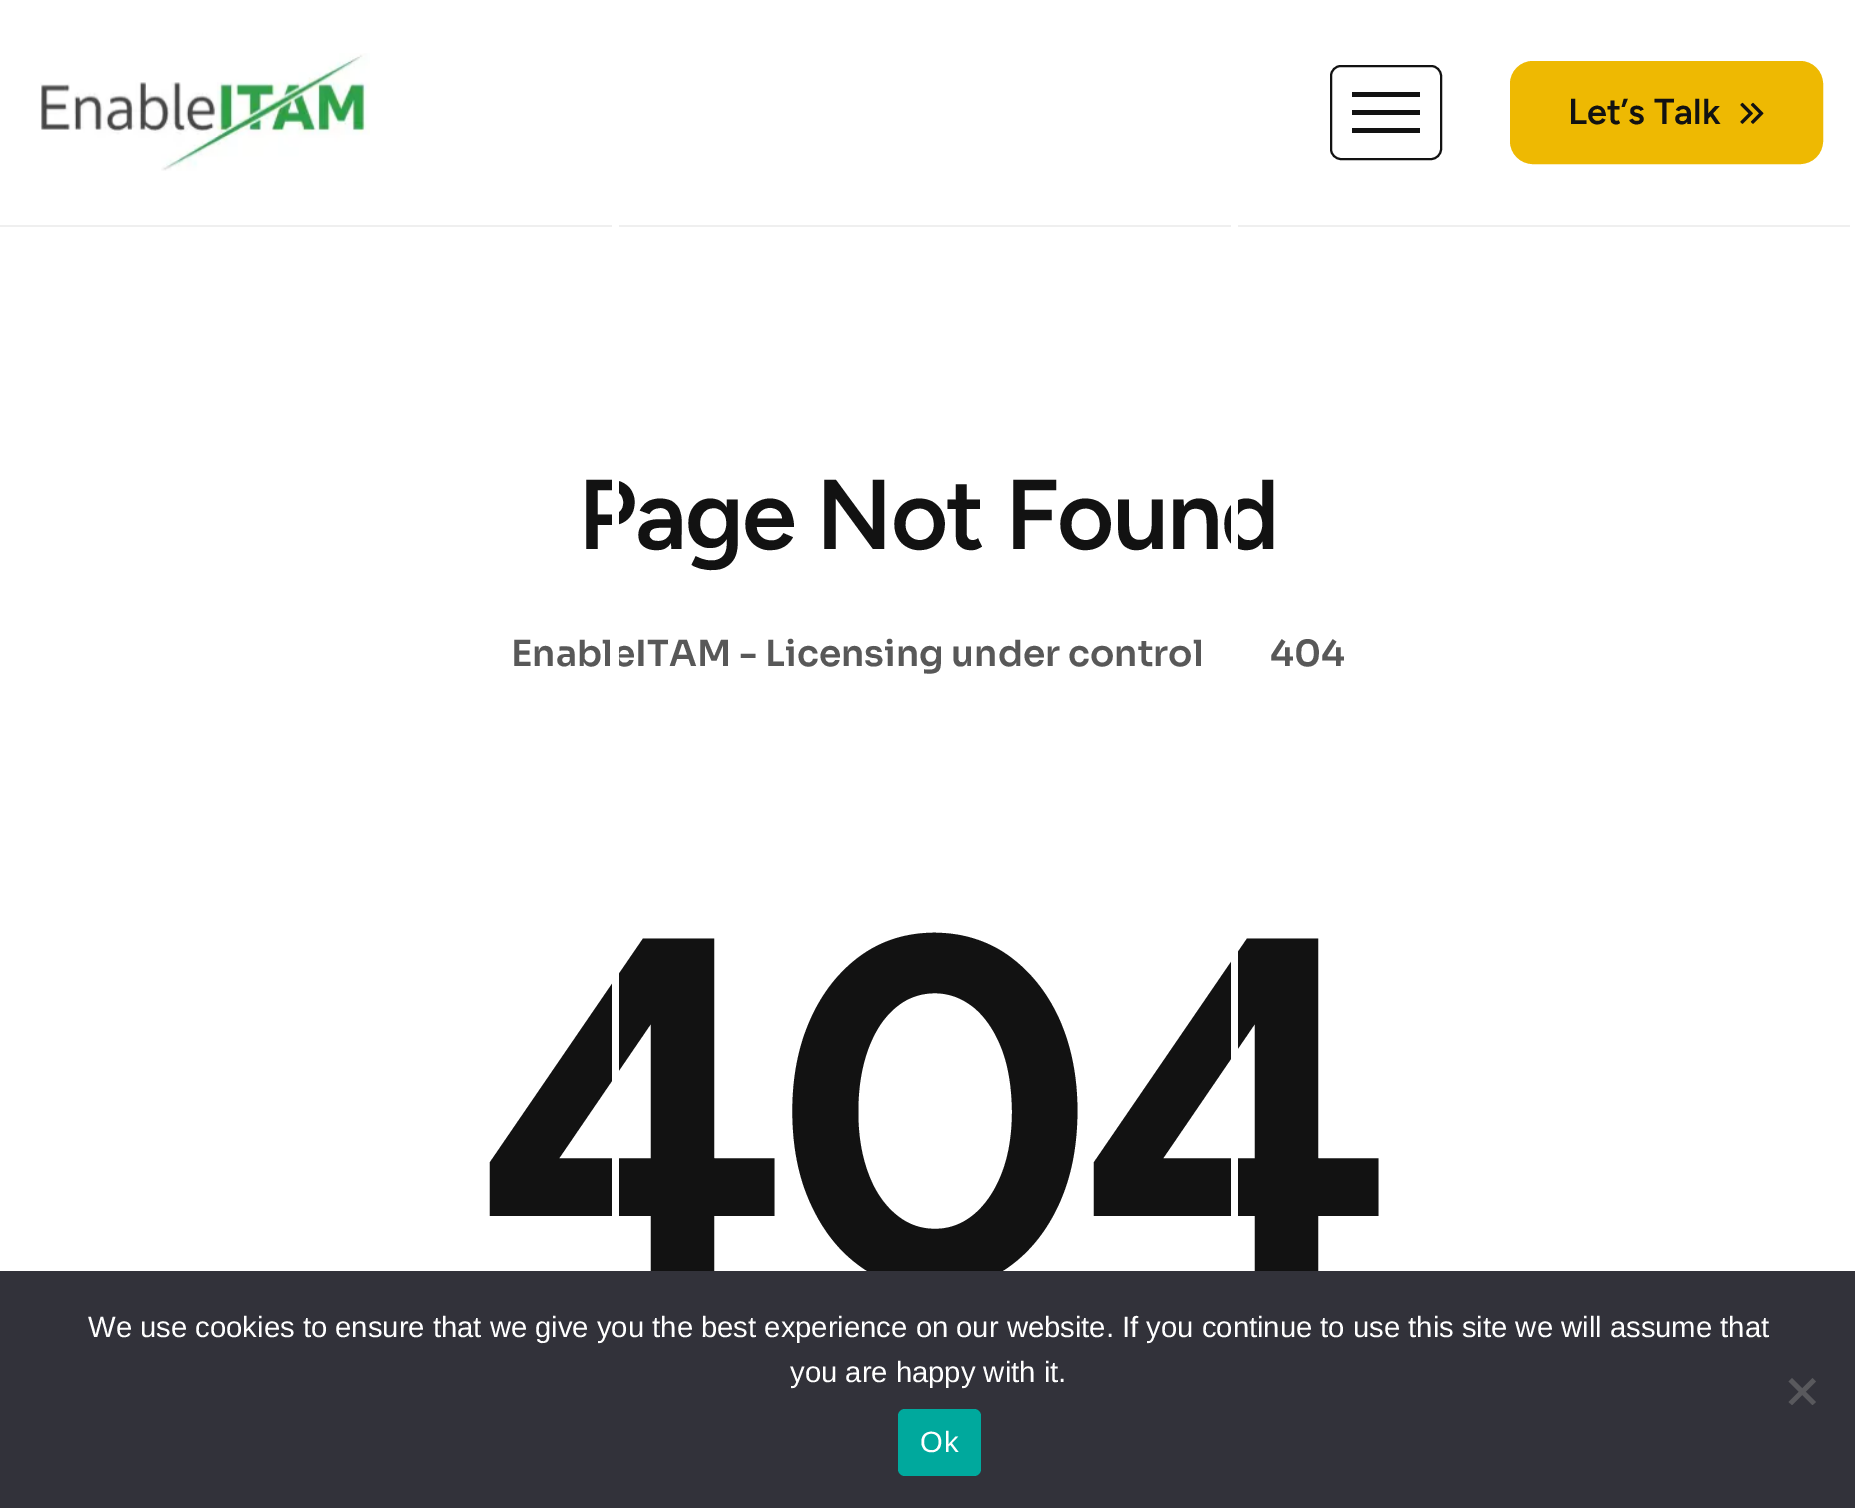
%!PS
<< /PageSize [1855 1508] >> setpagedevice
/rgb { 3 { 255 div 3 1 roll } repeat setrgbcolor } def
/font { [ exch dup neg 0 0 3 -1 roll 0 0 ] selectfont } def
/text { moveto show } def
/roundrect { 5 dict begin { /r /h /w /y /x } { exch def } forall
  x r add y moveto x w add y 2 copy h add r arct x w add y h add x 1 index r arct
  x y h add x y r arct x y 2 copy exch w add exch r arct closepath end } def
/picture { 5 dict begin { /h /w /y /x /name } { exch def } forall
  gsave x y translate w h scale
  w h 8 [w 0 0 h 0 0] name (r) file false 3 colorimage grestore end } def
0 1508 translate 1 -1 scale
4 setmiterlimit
255 255 255 rgb
0 0 1855 1508 rectfill
239 239 239 rgb
0 225 1855 2 rectfill
(img_01.rgb) 40 53 330 118 picture
18 18 18 rgb
2 setlinewidth
1331 66 110 93 10 roundrect stroke
1352 92 68 5 rectfill
1352 110 68 5 rectfill
1352 128 68 5 rectfill
238 185 2 rgb
1511 62 311 101 22 roundrect gsave fill grestore
stroke
(img_02.rgb) 1740 102 24 22 picture
255 255 255 rgb
1850 225 5 2 rectfill
/Figtree-SemiBold 36 font
18 18 18 rgb
(Let’s Talk) 1568 124 text
/Figtree-SemiBold 99 font
578 549 moveto -2 0 (Page Not Found) ashow
/Sora-SemiBold 36 font
88 88 88 rgb
(EnableITAM - Licensing under control) 511 666 text
(404) 1270 666 text
/Figtree-Bold 495 font
18 18 18 rgb
477 1284 moveto -15 0 (404) ashow
255 255 255 rgb
1231 225 7 991 rectfill
612 225 7 991 rectfill
50 50 58 rgb
0 1271 1855 237 rectfill
/LiberationSans-Regular 29.25 font
255 255 255 rgb
(We use cookies to ensure that we give you the best experience on our website. If you continue to use this site we will assume that) 88 1337 text
(you are happy with it.) 790 1382 text
89 89 93 rgb
1812.5 1378 moveto 3.5 3.5 rlineto -24 23.5 rlineto -3.5 -3 rlineto closepath fill
1788.5 1381.5 moveto 3.5 -3.5 rlineto 24 24 rlineto -3.5 3 rlineto closepath fill
0 169 157 rgb
898 1409 83 67 7 roundrect fill
255 255 255 rgb
920 1452 moveto 1 0 (Ok) ashow
showpage
